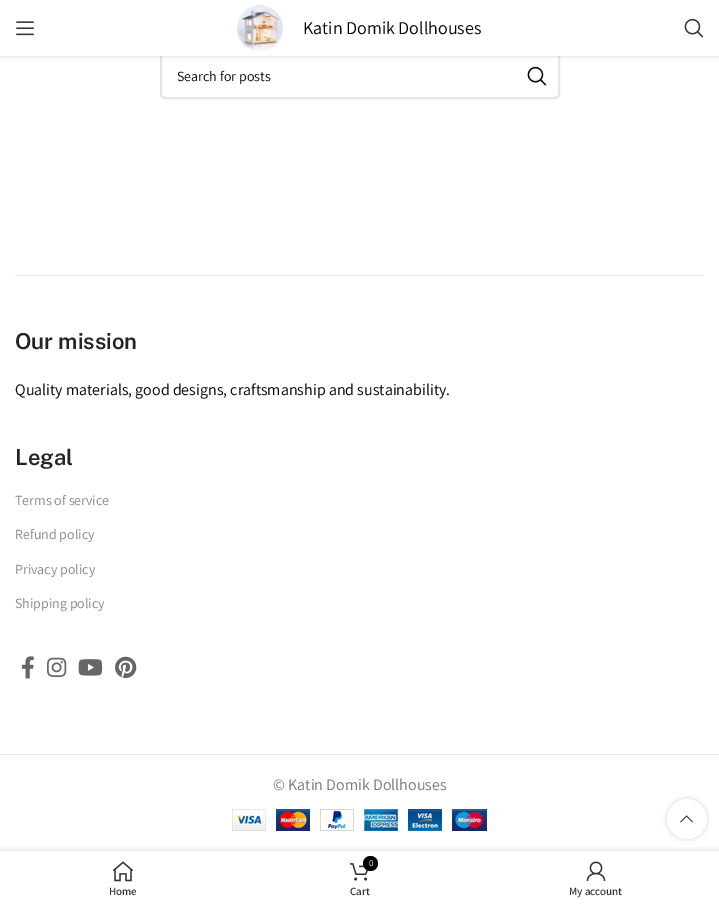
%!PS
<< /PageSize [719 906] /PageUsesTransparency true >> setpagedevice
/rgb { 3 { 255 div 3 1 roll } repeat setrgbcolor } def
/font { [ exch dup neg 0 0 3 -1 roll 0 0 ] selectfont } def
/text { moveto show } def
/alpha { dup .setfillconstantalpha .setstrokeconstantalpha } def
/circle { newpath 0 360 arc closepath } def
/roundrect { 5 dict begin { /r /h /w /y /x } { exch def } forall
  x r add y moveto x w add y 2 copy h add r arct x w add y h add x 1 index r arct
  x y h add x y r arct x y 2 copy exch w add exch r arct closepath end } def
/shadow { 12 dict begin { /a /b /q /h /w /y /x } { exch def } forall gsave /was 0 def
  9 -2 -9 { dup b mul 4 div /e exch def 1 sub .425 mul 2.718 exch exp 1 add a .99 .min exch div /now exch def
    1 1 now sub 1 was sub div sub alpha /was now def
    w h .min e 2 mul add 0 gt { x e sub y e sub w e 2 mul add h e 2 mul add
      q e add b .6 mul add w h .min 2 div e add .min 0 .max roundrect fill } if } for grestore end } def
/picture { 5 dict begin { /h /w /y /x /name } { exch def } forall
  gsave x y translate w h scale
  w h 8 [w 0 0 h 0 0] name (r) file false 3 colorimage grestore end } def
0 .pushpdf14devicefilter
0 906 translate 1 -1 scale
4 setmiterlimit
255 255 255 rgb
0 0 719 906 rectfill
230 230 230 rgb
2 setlinewidth
161 54 398 44 4 roundrect stroke
0 0 0 rgb
0 1 719 56 0 1.5 0.1 shadow
255 255 255 rgb
0 0 719 56 rectfill
(img_01.rgb) 16 21 18 15 picture
(img_02.rgb) 237 5 46 46 picture
(img_03.rgb) 684 18 20 20 picture
(img_04.rgb) 527 66 20 20 picture
226 226 226 rgb
15 275 689 1 rectfill
(img_05.rgb) 22 656 12 23 picture
(img_06.rgb) 47 657 20 20 picture
(img_07.rgb) 78 659 25 17 picture
(img_08.rgb) 115 656 22 22 picture
228 228 228 rgb
0 754 719 1 rectfill
(img_09.rgb) 232 809 255 22 picture
gsave
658 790 moveto 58 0 rlineto 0 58 rlineto -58 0 rlineto closepath 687 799 moveto 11 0 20 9 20 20 rcurveto 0 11 -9 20 -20 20 rcurveto -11 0 -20 -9 -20 -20 rcurveto 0 -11 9 -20 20 -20 rcurveto closepath eoclip newpath
0 0 0 rgb
667 799 40 40 20 2.5 0.17 shadow
grestore
0.9 alpha
255 255 255 rgb
687 819 20 circle fill
1 alpha
(img_10.rgb) 680 815 13 8 picture
gsave
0 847 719 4 rectclip
0 0 0 rgb
0 851 719 55 0 4.5 0.12 shadow
grestore
(img_11.rgb) 113 861 20 21 picture
(img_12.rgb) 350 863 19 18 picture
0 0 0 rgb
370.5 863.5 7.5 circle fill
(img_13.rgb) 586 861 20 20 picture
/Assistant-Regular 18 font
(Katin Domik Dollhouses) 303 34 text
/Assistant-Regular 14 font
(Search for posts) 177 81 text
/PublicSans-SemiBold 22 font
36 36 36 rgb
(Our mission) 15 349 text
/Assistant-Regular 16 font
0 0 0 rgb
(Quality materials, good designs, craftsmanship and sustainability.) 15 395 text
/PublicSans-SemiBold 22 font
36 36 36 rgb
(Legal) 15 465 text
/Assistant-Regular 14 font
132 132 132 rgb
(Terms of service) 15 505 text
(Refund policy) 15 539 text
(Privacy policy) 15 574 text
(Shipping policy) 15 608 text
/Assistant-Regular 16 font
119 119 119 rgb
(© Katin Domik Dollhouses) 273 790 text
/Assistant-SemiBold 11 font
51 51 51 rgb
(Home) 109 895 text
/Assistant-Regular 9 font
255 255 255 rgb
(0) 369 866 text
/Assistant-SemiBold 11 font
51 51 51 rgb
(Cart) 350 895 text
(My account) 569 895 text
.poppdf14devicefilter showpage
